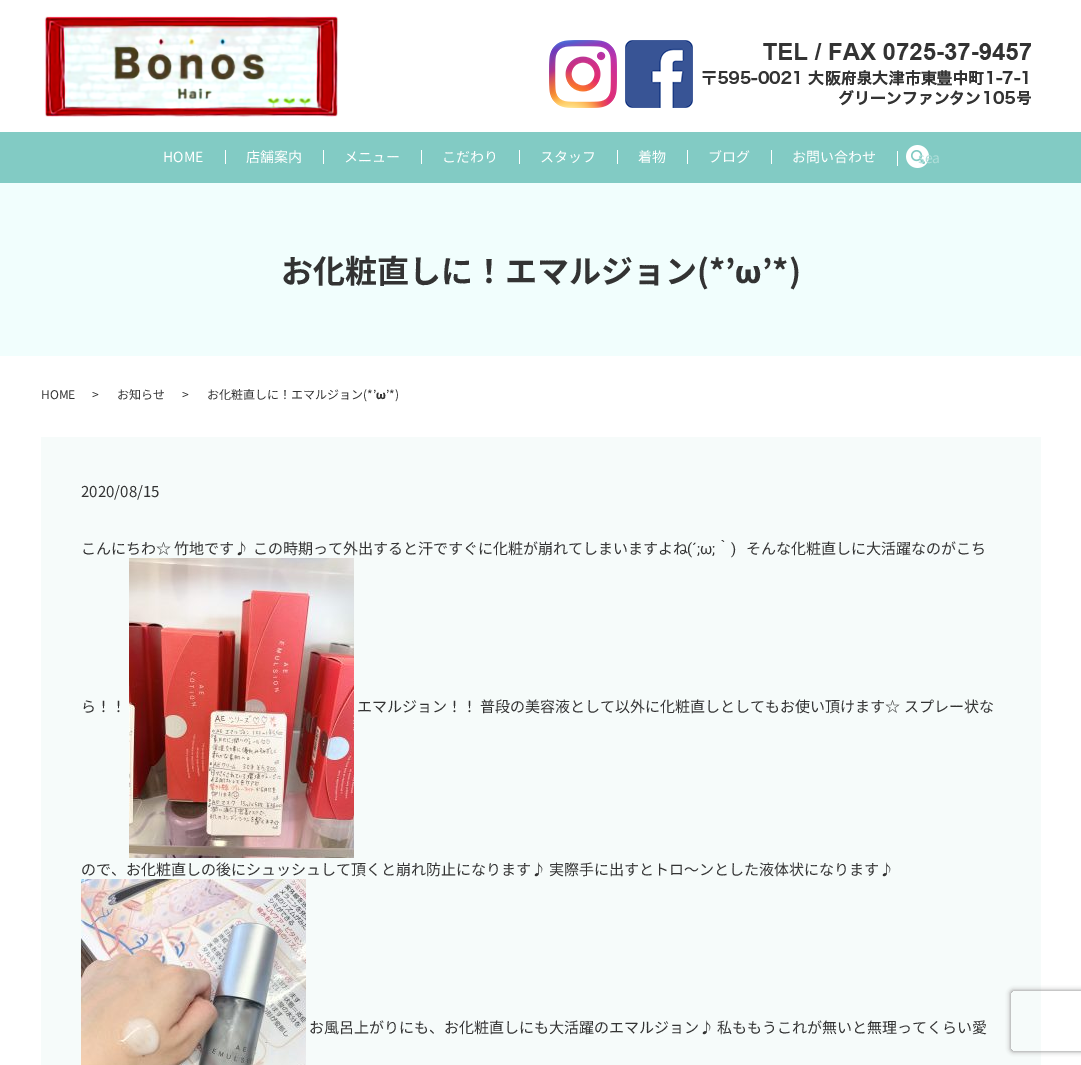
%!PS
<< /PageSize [1081 1065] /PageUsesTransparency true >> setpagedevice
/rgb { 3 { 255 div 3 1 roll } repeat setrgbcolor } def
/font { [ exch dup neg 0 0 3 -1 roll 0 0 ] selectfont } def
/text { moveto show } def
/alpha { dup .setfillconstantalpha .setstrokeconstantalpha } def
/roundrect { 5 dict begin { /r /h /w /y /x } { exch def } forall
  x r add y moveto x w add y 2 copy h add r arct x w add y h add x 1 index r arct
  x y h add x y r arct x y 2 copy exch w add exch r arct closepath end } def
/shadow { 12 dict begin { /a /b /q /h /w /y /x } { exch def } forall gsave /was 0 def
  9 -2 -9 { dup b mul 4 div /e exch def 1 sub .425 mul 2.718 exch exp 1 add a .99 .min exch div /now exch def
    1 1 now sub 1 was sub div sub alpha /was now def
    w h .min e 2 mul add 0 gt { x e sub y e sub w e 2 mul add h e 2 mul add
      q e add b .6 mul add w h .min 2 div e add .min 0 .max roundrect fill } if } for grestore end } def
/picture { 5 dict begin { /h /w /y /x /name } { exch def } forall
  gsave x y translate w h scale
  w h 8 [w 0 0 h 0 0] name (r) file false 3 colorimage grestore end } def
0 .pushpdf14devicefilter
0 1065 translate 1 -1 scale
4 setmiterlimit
255 255 255 rgb
0 0 1081 1065 rectfill
(img_01.rgb) 44 15 295 102 picture
(img_02.rgb) 549 40 68 68 picture
(img_03.rgb) 625 40 68 68 picture
(img_04.rgb) 702 43 329 63 picture
130 203 196 rgb
0 132 1081 51 rectfill
255 255 255 rgb
225 150 1 14 rectfill
323 150 1 14 rectfill
421 150 1 14 rectfill
519 150 1 14 rectfill
617 150 1 14 rectfill
687 150 1 14 rectfill
771 150 1 14 rectfill
(img_05.rgb) 906 145 23 23 picture
897 151 1 15 rectfill
241 254 253 rgb
0 183 1081 173 rectfill
246 251 250 rgb
41 437 1000 628 rectfill
(img_06.rgb) 129 558 225 300 picture
(img_07.rgb) 81 879 225 186 picture
gsave
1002 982 moveto 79 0 rlineto 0 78 rlineto -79 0 rlineto closepath 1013 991 moveto 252 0 rlineto 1 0 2 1 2 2 rcurveto 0 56 rlineto 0 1 -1 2 -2 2 rcurveto -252 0 rlineto -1 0 -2 -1 -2 -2 rcurveto 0 -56 rlineto 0 -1 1 -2 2 -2 rcurveto closepath eoclip newpath
128 128 128 rgb
1011 991 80 60 2 2.5 1 shadow
grestore
/NotoSansJP-Regular 14 font
255 255 255 rgb
(HOME) 163 162 text
(店舗案内) 246 162 text
(メニュー) 344 162 text
(こだわり) 442 162 text
(スタッフ) 540 162 text
(着物) 638 162 text
(ブログ) 708 162 text
(お問い合わせ) 792 162 text
175 222 217 rgb
(sea) 918 163 text
/NotoSansJP-Bold 32 font
51 51 51 rgb
(お化粧直しに！エマルジョン\(*’) 281 283 text
/Roboto-ExtraBold 32 font
(ω) 735 283 text
/NotoSansJP-Bold 32 font
(’*\)) 762 283 text
/NotoSansJP-Regular 12 font
(HOME) 41 399 text
(>) 92 399 text
(お知らせ) 117 399 text
(>) 182 399 text
(お化粧直しに！エマルジョン\(*’) 207 399 text
/Roboto-ExtraBold 12 font
(ω) 376 399 text
/NotoSansJP-Regular 12 font
(’*\)) 386 399 text
/NotoSansJP-Regular 15 font
(2020/08/15) 81 497 text
(｀) 716 554 text
(こんにちわ☆ 竹地です♪ この時期って外出すると汗ですぐに化粧が崩れてしまいますよね) 81 554 text
/Roboto-Regular 15 font
(\(´;ω;) 687 554 text
(\)) 731 554 text
/NotoSansJP-Regular 15 font
(そんな化粧直しに大活躍なのがこち) 746 554 text
(ら！！) 81 712 text
(エマルジョン！！ 普段の美容液として以外に化粧直しとしてもお使い頂けます☆ スプレー状な) 357 712 text
(ので、お化粧直しの後にシュッシュして頂くと崩れ防止になります♪ 実際手に出すとトロ～ンとした液体状になります♪) 81 875 text
(お風呂上がりにも、お化粧直しにも大活躍のエマルジョン♪ 私ももうこれが無いと無理ってくらい愛) 309 1033 text
.poppdf14devicefilter showpage
